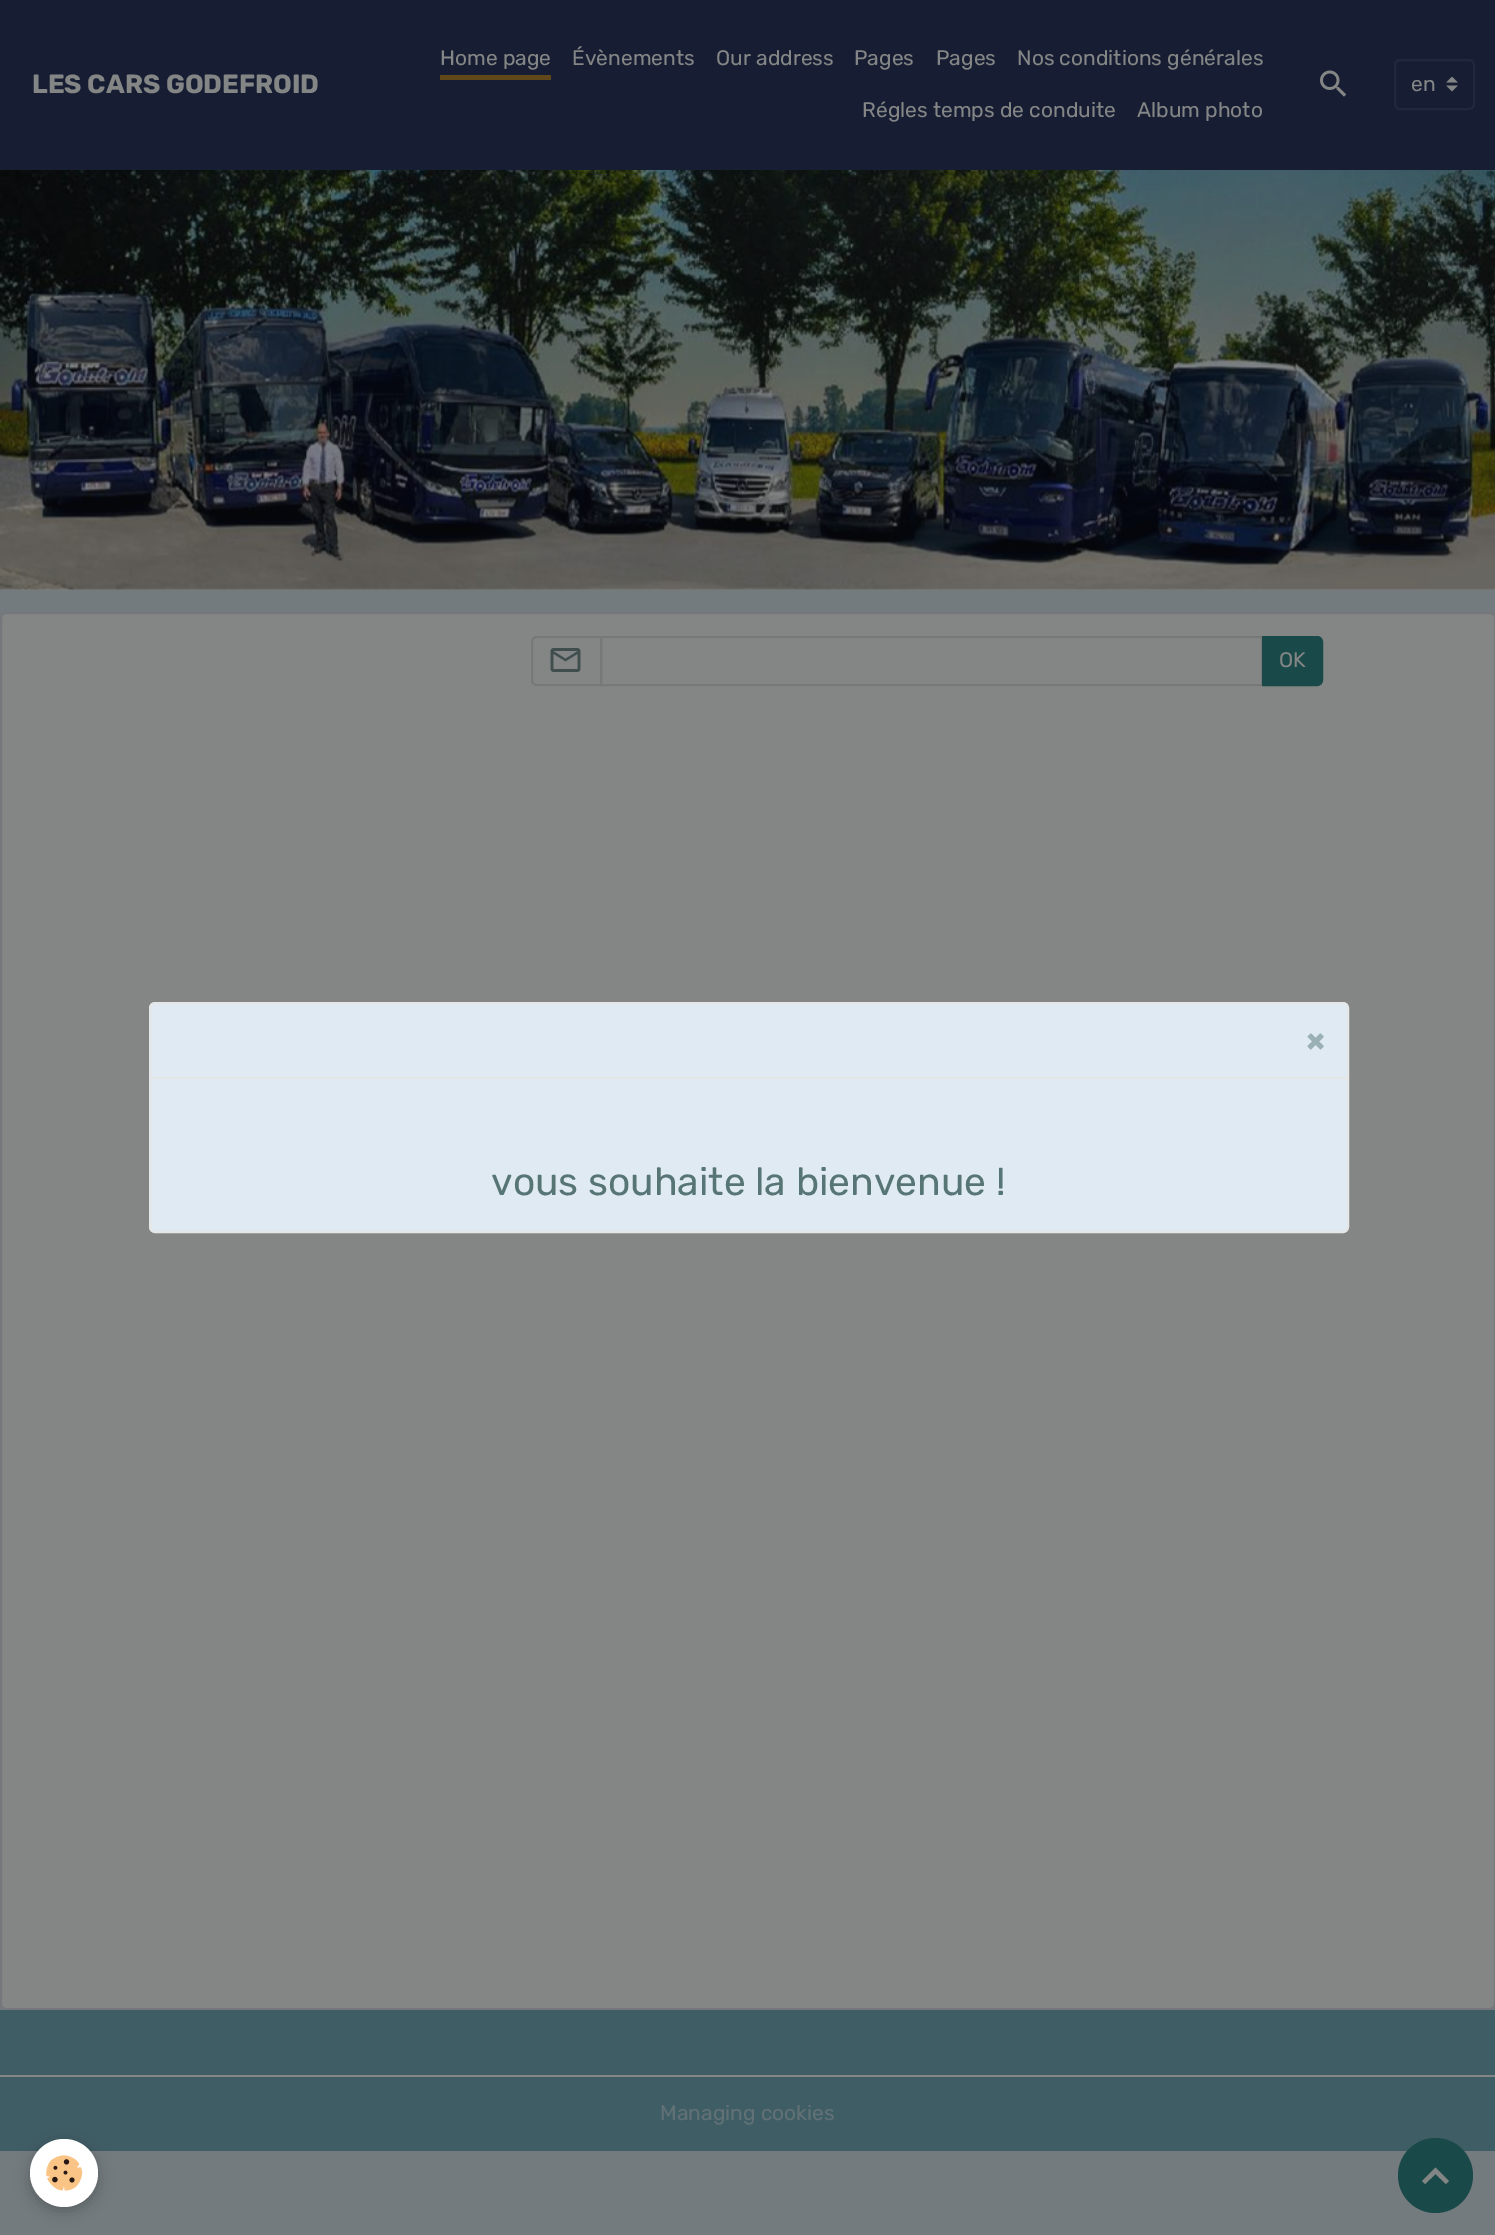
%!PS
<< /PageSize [1495 2235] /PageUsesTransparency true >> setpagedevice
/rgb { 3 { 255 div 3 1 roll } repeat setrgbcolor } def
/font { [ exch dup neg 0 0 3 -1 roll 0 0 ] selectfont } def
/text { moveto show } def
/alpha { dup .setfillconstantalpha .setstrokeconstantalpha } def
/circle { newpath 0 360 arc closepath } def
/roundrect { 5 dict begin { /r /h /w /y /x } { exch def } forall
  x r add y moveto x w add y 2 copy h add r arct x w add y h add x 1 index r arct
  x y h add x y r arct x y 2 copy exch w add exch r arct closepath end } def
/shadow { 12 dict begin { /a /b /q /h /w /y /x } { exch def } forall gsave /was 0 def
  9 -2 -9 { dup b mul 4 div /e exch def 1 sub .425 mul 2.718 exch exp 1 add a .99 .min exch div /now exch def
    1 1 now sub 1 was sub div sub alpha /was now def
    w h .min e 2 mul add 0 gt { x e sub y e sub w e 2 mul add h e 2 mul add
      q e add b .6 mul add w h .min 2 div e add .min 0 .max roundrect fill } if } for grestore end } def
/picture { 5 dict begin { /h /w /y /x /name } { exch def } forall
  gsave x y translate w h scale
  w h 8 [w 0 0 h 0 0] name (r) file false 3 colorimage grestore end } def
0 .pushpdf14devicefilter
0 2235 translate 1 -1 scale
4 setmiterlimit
116 123 127 rgb
0 0 1495 2235 rectfill
23 30 51 rgb
0 0 1495 170 rectfill
97 72 26 rgb
440 75 111 5 rectfill
(img_01.rgb) 1320 70 27 27 picture
(img_02.rgb) 1446 77 12 15 picture
34 40 60 rgb
2 setlinewidth
1395 60 79 49 5 roundrect stroke
132 134 134 rgb
0 588 1495 2 rectfill
(img_03.rgb) 0 170 1495 420 picture
1 613 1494 1396 5 roundrect gsave fill grestore
117 119 124 rgb
stroke
119 121 121 rgb
537 637 moveto 64 0 rlineto 0 48 rlineto -64 0 rlineto -3 0 -5 -2 -5 -5 rcurveto 0 -38 rlineto 0 -3 2 -5 5 -5 rcurveto closepath stroke
(img_04.rgb) 550 648 31 24 picture
601 637 661 48 rectstroke
26 73 74 rgb
1263 637 moveto 54 0 rlineto 3 0 5 2 5 5 rcurveto 0 38 rlineto 0 3 -2 5 -5 5 rcurveto -54 0 rlineto closepath gsave fill grestore
stroke
223 234 242 rgb
150 1003 1198 229 5 roundrect gsave fill grestore
229 230 230 rgb
stroke
150 1077 1197 2 rectfill
63 93 101 rgb
0 2010 1495 141 rectfill
132 134 134 rgb
0 2075 1495 2 rectfill
0 0 0 rgb
30 2144 68 67 33.5 7.5 0.24 shadow
255 255 255 rgb
64 2173 34 circle fill
(img_05.rgb) 46 2155 37 36 picture
26 73 74 rgb
1435.5 2175.5 37.5 circle fill
132 134 134 rgb
1435.5 2167.5 moveto 13.5 13.5 rlineto -3 3 rlineto -10.5 -10 rlineto -10.5 10 rlineto -3 -3 rlineto closepath fill
/Rubik-Bold 26.25 font
(LES CARS GODEFROID) 32 93 text
/Rubik-Regular 21 font
(Home page) 440 65 text
(Évènements) 572 65 text
(Our address) 716 65 text
(Pages) 854 65 text
(Pages) 936 65 text
(Nos conditions générales) 1017 65 text
(Régles temps de conduite) 862 117 text
(Album photo) 1137 117 text
gsave
1412 69 25 32 rectclip
(en) 1411 91 text
grestore
(OK) 1279 667 text
/Rubik-Bold 32 font
155 176 180 rgb
(×) 1306 1051 text
/Rubik-Regular 39 font
87 117 117 rgb
(vous souhaite la bienvenue !) 491 1195 text
/Rubik-Regular 21 font
98 113 117 rgb
(Managing cookies) 660 2120 text
.poppdf14devicefilter showpage
